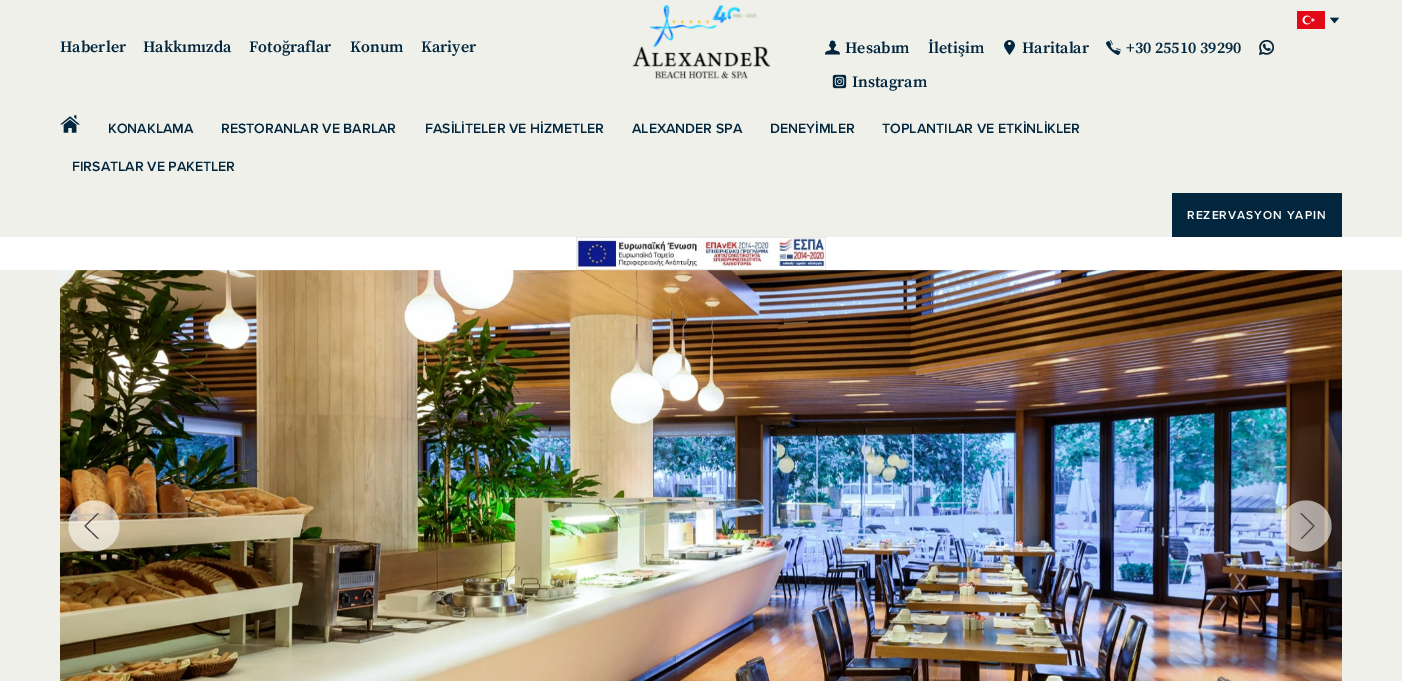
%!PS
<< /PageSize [1402 681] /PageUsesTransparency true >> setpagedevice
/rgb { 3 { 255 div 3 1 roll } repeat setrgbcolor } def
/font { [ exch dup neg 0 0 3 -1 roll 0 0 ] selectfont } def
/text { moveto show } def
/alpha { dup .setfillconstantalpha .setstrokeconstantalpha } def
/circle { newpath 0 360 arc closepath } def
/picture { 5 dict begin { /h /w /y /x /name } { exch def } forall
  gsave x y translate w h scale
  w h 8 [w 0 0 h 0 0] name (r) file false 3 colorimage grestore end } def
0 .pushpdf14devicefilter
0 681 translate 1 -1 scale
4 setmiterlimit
255 255 255 rgb
0 0 1402 681 rectfill
239 240 233 rgb
0 0 1402 237 rectfill
(img_01.rgb) 632 5 139 74 picture
(img_02.rgb) 1297 11 28 18 picture
(img_03.rgb) 1330 17 9 7 picture
(img_04.rgb) 825 40 15 15 picture
(img_05.rgb) 1004 40 11 15 picture
(img_06.rgb) 1106 40 15 15 picture
(img_07.rgb) 1259 40 15 15 picture
(img_08.rgb) 832 74 15 15 picture
(img_09.rgb) 60 115 20 18 picture
2 38 61 rgb
1172 193 170 44 rectfill
(img_10.rgb) 576 237 250 33 picture
239 240 233 rgb
0 270 1402 411 rectfill
(img_11.rgb) 60 270 1282 411 picture
0.6 alpha
255 255 255 rgb
94 526 25.5 circle fill
1 alpha
67 67 69 rgb
1 setlinecap
1 setlinejoin
98 513.5 moveto -13 12.5 rlineto 13 12.5 rlineto stroke
0.6 alpha
255 255 255 rgb
1306 526 25.5 circle fill
1 alpha
67 67 69 rgb
1301.5 538.5 moveto 12.5 -12.5 rlineto -13 -12.5 rlineto stroke
/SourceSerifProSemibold-SemiBold 16 font
2 38 61 rgb
(Haberler) 60 52 text
(Hakkımızda) 143 52 text
(Fotoğraflar) 249 52 text
(Konum) 350 52 text
(Kariyer) 421 52 text
(Hesabım) 845 53 text
(İletişim) 928 53 text
(Haritalar) 1022 53 text
(+30 25510 39290) 1126 53 text
(Instagram) 852 87 text
/ProximaNova-SemiBold 14 font
(KONAKLAMA) 108 133 text
(RESTORANLAR VE BARLAR) 221 133 text
(FASİLİTELER VE HİZMETLER) 425 133 text
(ALEXANDER SPA) 632 133 text
(DENEYİMLER) 770 133 text
(TOPLANTILAR VE ETKİNLİKLER) 882 133 text
(FIRSATLAR VE PAKETLER) 72 171 text
/ProximaNova-SemiBold 12 font
255 255 255 rgb
1187 219 moveto 1 0 (REZERVASYON YAPIN) ashow
.poppdf14devicefilter showpage
